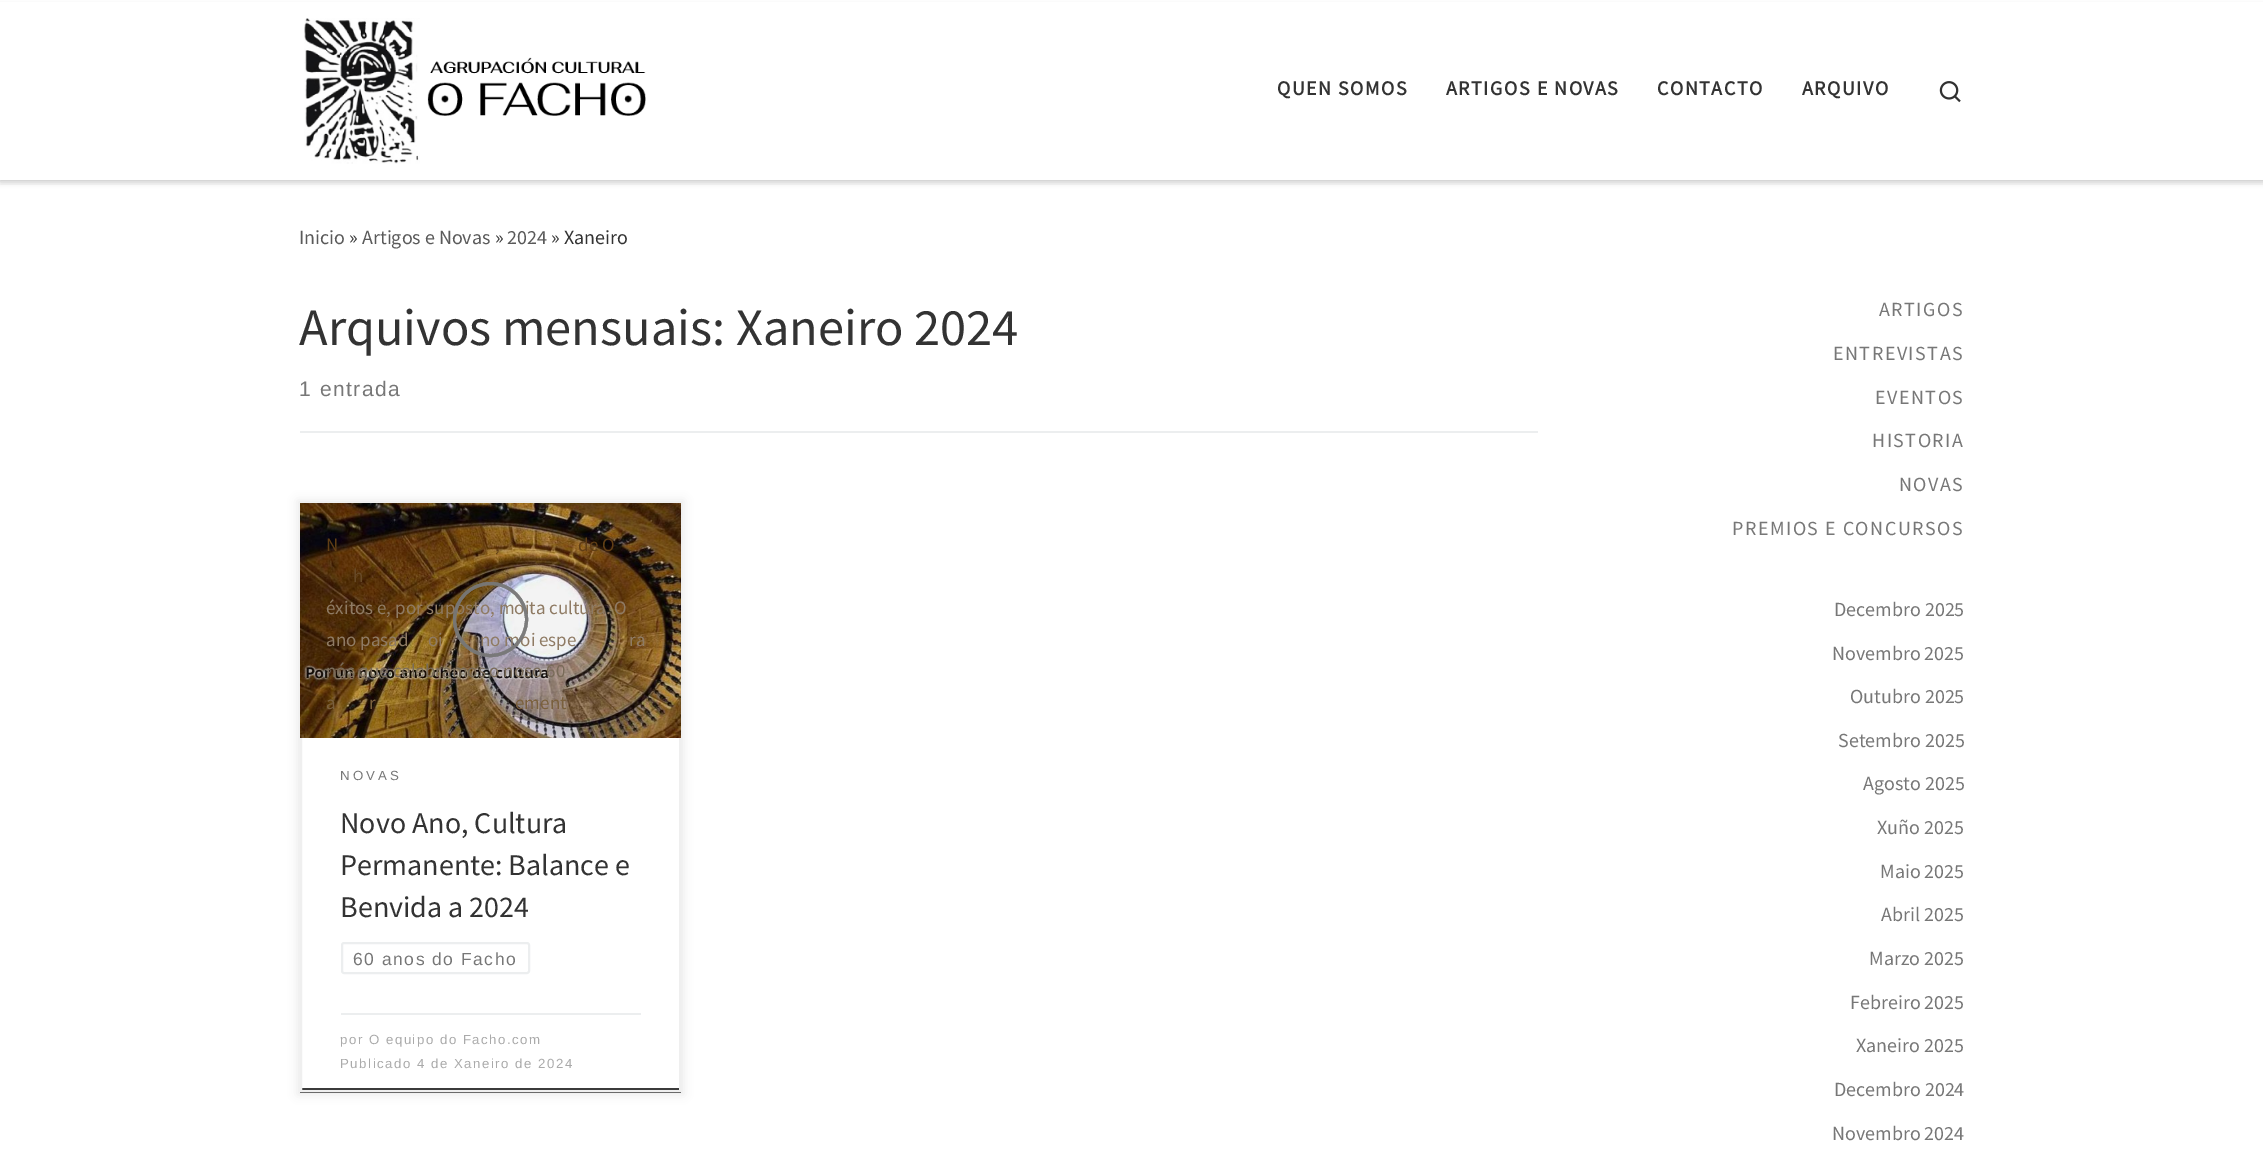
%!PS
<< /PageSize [2263 1158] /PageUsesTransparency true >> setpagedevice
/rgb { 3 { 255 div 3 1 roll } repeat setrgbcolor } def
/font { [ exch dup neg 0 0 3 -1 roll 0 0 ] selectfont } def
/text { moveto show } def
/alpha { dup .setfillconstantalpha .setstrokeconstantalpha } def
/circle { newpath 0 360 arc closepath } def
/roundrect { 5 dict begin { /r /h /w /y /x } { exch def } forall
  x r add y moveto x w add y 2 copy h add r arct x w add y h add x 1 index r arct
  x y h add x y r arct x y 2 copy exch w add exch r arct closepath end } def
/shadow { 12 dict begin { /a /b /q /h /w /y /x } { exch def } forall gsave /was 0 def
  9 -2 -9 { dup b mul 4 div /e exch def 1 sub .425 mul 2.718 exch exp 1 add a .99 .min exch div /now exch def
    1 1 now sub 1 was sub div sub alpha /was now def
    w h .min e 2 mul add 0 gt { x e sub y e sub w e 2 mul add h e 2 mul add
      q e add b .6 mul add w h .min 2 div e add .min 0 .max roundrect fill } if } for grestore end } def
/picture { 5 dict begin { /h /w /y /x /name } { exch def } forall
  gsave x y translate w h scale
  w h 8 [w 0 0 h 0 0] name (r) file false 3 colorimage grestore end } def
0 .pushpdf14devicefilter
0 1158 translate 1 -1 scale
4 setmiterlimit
255 255 255 rgb
0 0 2263 1158 rectfill
102 102 102 rgb
0 3 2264 182 0 1.5 0.08 shadow
255 255 255 rgb
0 2 2263 178 rectfill
239 239 239 rgb
0 180 moveto 0 2 rlineto 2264 0 rlineto 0 -180 rlineto 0 178 rlineto closepath fill
gsave
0 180 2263 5 rectclip
0 0 0 rgb
0 0 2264 180 0 4 0.2 shadow
grestore
(img_01.rgb) 304 18 342 146 picture
(img_02.rgb) 1939 81 22 22 picture
236 238 239 rgb
300 431 1238 2 rectfill
gsave
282 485 moveto 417 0 rlineto 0 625 rlineto -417 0 rlineto closepath 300 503 moveto 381 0 rlineto 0 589 rlineto -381 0 rlineto closepath eoclip newpath
0 0 0 rgb
297 500 387 595 0 4.5 0.07 shadow
grestore
59 59 59 rgb
300 1088 381 5 rectfill
236 238 239 rgb
2 setlinewidth
342 943 187 30 2 roundrect stroke
239 239 239 rgb
301 504 379 587 rectstroke
(img_03.rgb) 300 503 381 235 picture
236 238 239 rgb
341 1013 300 2 rectfill
/SourceSansPro-Bold 20 font
51 51 51 rgb
1277 95 moveto 1.5 0 (QUEN SOMOS) ashow
1446 95 moveto 1.5 0 (ARTIGOS E NOVAS) ashow
1657 95 moveto 1.5 0 (CONTACTO) ashow
1802 95 moveto 1.5 0 (ARQUIVO) ashow
/SourceSansPro-Regular 20 font
90 90 90 rgb
(Inicio) 299 244 text
51 51 51 rgb
(») 349 244 text
90 90 90 rgb
(Artigos e Novas) 362 244 text
51 51 51 rgb
(») 495 244 text
90 90 90 rgb
(2024) 507 244 text
51 51 51 rgb
(» Xaneiro) 551 244 text
/SourceSansPro-Regular 52.5 font
(Arquivos mensuais: Xaneiro 2024) 299 345 text
/LiberationSans-Regular 21 font
119 119 119 rgb
299 396 moveto 1.5 0 (1 entrada) ashow
/SourceSansPro-Regular 19 font
97 62 21 rgb
(N) 326 551 text
(,) 495 551 text
(de O) 578 551 text
103 73 39 rgb
(h) 353 582 text
143 123 100 rgb
(éxitos e, por suposto, moita cultura. O) 326 614 text
(ano pasad) 326 646 text
(oi) 428 646 text
(no moi espe) 480 646 text
(ra) 629 646 text
121 107 89 rgb
(nós que celebramos o noso 60) 326 677 text
122 96 61 rgb
(a) 326 709 text
(r) 369 709 text
(ement) 515 709 text
0.65 alpha
119 119 119 rgb
3 setlinewidth
490.5 619.5 36 circle stroke
490.5 619.5 36 circle stroke
490.5 619.5 36 circle stroke
/LiberationSans-Regular 13.25 font
1 alpha
340 780 moveto 3 0 (NOVAS) ashow
/SourceSansPro-Regular 30 font
51 51 51 rgb
(Novo Ano, Cultura) 340 833 text
(Permanente: Balance e) 340 875 text
(Benvida a 2024) 340 917 text
/LiberationSans-Regular 17.5 font
119 119 119 rgb
353 965 moveto 1.5 0 (60 anos do Facho) ashow
/LiberationSans-Regular 13.25 font
170 170 170 rgb
340 1044 moveto 1.5 0 (por O equipo do Facho.com) ashow
340 1068 moveto 1.5 0 (Publicado 4 de Xaneiro de 2024) ashow
/SourceSansPro-Regular 20 font
119 119 119 rgb
1879 316 moveto 1.5 0 (ARTIGOS) ashow
1833 360 moveto 1.5 0 (ENTREVISTAS) ashow
1875 404 moveto 1.5 0 (EVENTOS) ashow
1872 447 moveto 1.5 0 (HISTORIA) ashow
1899 491 moveto 1.5 0 (NOVAS) ashow
1732 535 moveto 1.5 0 (PREMIOS E CONCURSOS) ashow
(Decembro 2025) 1834 616 text
(Novembro 2025) 1832 660 text
(Outubro 2025) 1850 703 text
(Setembro 2025) 1838 747 text
(Agosto 2025) 1863 790 text
(Xuño 2025) 1877 834 text
(Maio 2025) 1880 878 text
(Abril 2025) 1881 921 text
(Marzo 2025) 1869 965 text
(Febreiro 2025) 1850 1009 text
(Xaneiro 2025) 1856 1052 text
(Decembro 2024) 1834 1096 text
(Novembro 2024) 1832 1140 text
.poppdf14devicefilter showpage
